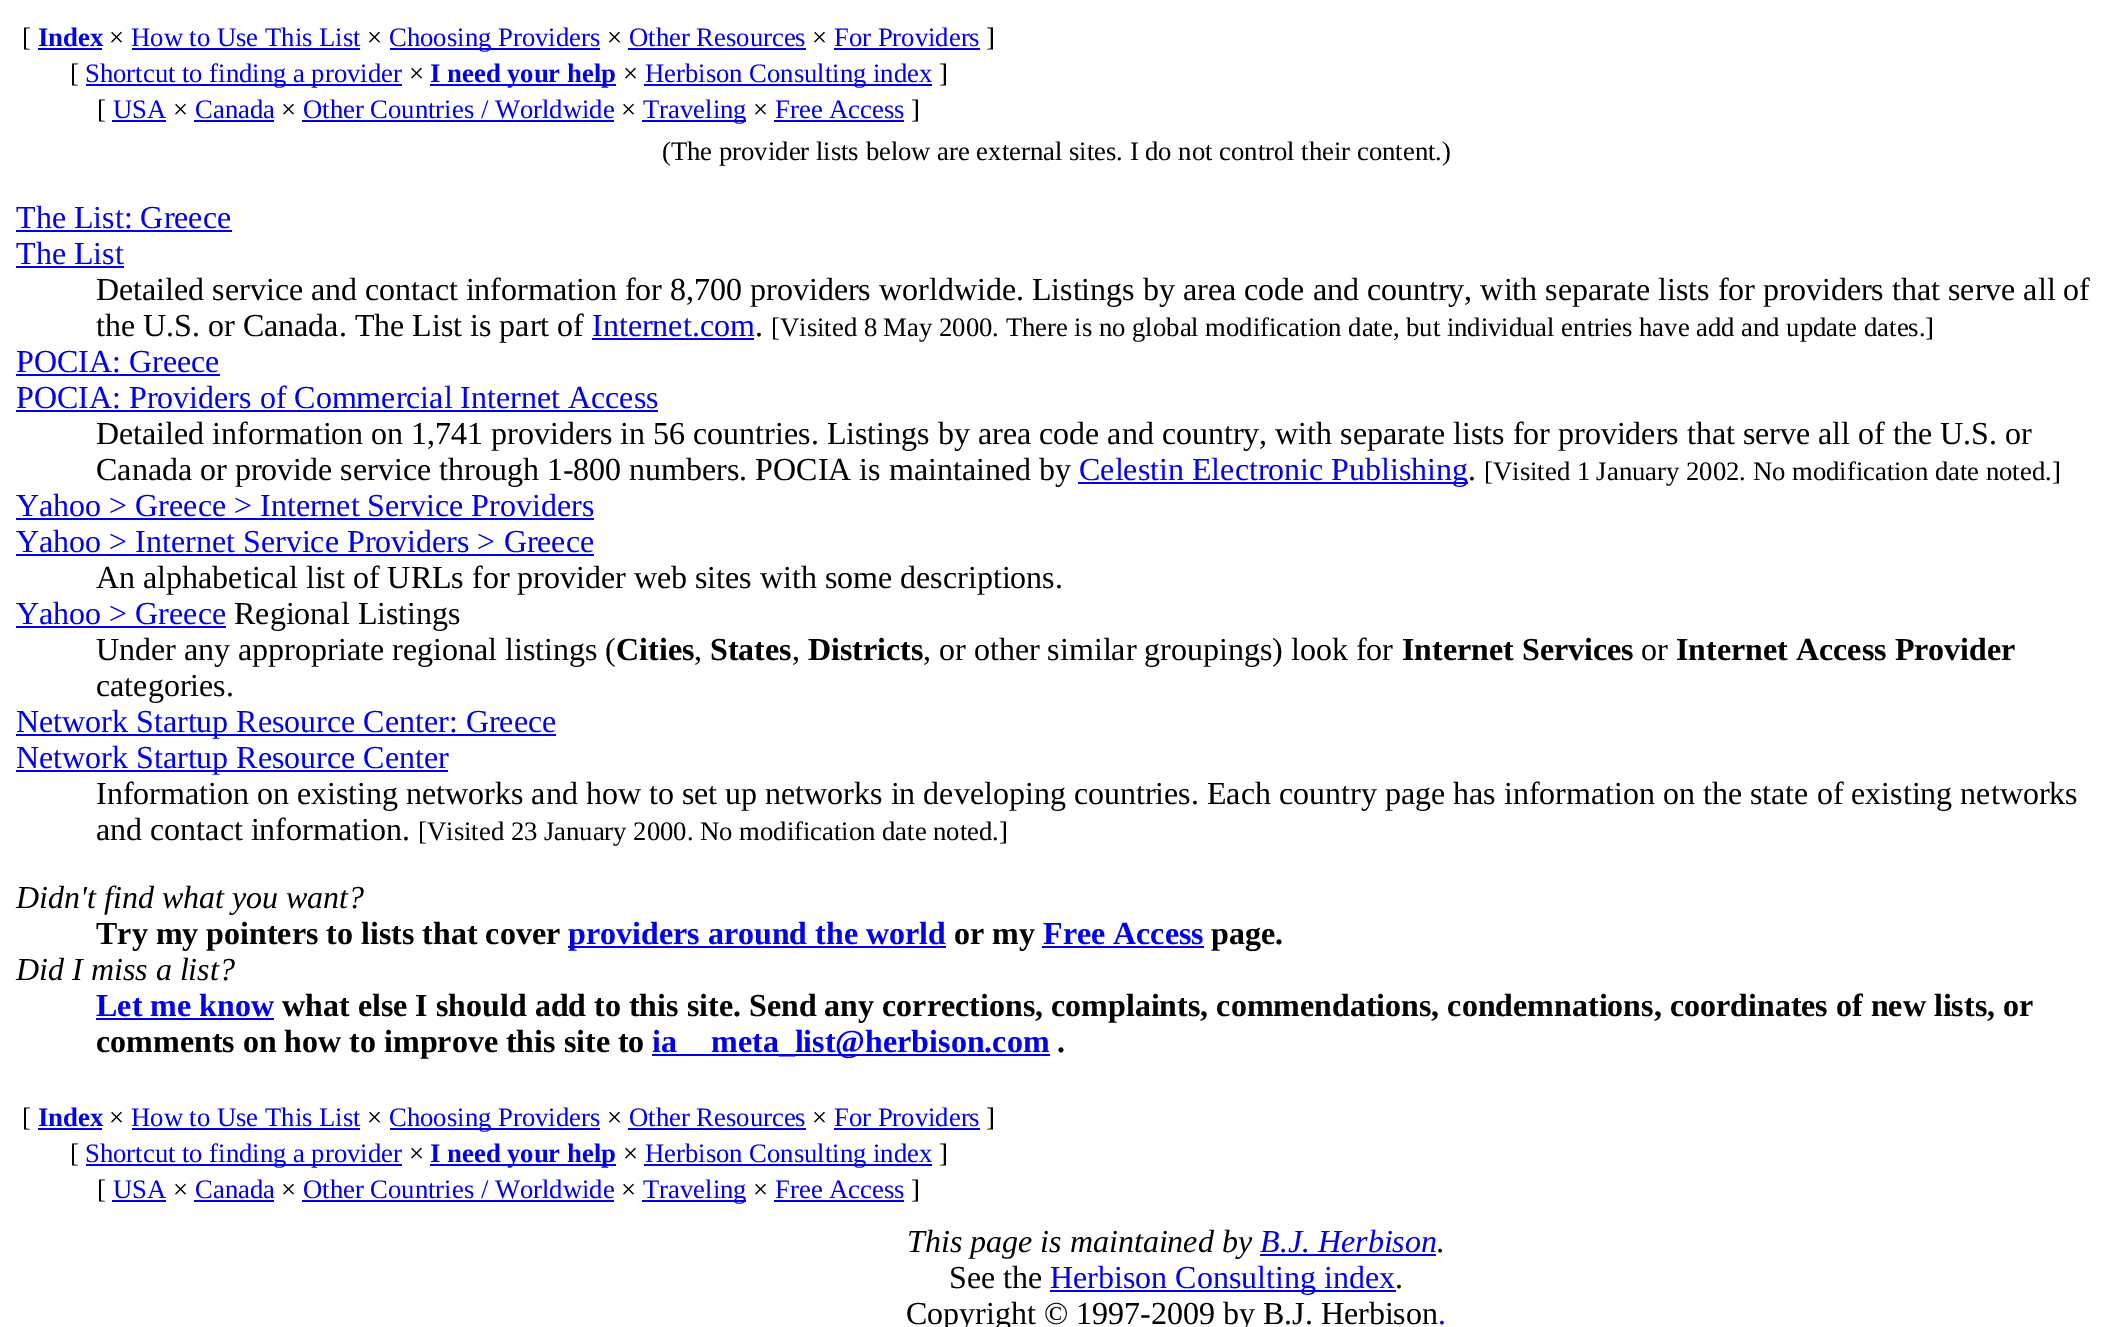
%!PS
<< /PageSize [2114 1327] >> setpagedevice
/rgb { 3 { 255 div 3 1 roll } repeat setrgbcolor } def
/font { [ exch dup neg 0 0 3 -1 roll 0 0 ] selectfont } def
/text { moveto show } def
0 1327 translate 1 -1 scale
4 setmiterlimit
255 255 255 rgb
0 0 2114 1327 rectfill
0 0 238 rgb
38 48 64 2 rectfill
132 48 228 2 rectfill
390 48 210 2 rectfill
628 48 178 2 rectfill
834 48 146 2 rectfill
86 84 316 2 rectfill
430 84 186 2 rectfill
644 84 288 2 rectfill
112 120 54 2 rectfill
194 120 80 2 rectfill
302 120 312 2 rectfill
642 120 104 2 rectfill
774 120 130 2 rectfill
16 230 216 2 rectfill
16 266 108 2 rectfill
592 338 162 2 rectfill
16 374 204 2 rectfill
16 410 642 2 rectfill
1078 482 390 2 rectfill
16 518 578 2 rectfill
16 554 578 2 rectfill
16 626 210 2 rectfill
16 734 540 2 rectfill
16 770 432 2 rectfill
568 946 378 2 rectfill
1042 946 162 2 rectfill
96 1018 178 2 rectfill
652 1054 398 2 rectfill
38 1128 64 2 rectfill
132 1128 228 2 rectfill
390 1128 210 2 rectfill
628 1128 178 2 rectfill
834 1128 146 2 rectfill
86 1164 316 2 rectfill
430 1164 186 2 rectfill
644 1164 288 2 rectfill
112 1200 54 2 rectfill
194 1200 80 2 rectfill
302 1200 312 2 rectfill
642 1200 104 2 rectfill
774 1200 130 2 rectfill
1260 1254 176 2 rectfill
1050 1290 346 2 rectfill
/LiberationSerif-Regular 26.65 font
0 0 0 rgb
([) 22 46 text
/LiberationSerif-Bold 26.65 font
0 0 238 rgb
(Index) 38 46 text
/LiberationSerif-Regular 26.65 font
0 0 0 rgb
(×) 109 46 text
0 0 238 rgb
(How to Use This List) 131 46 text
0 0 0 rgb
(×) 367 46 text
0 0 238 rgb
(Choosing Providers) 389 46 text
0 0 0 rgb
(×) 607 46 text
0 0 238 rgb
(Other Resources) 629 46 text
0 0 0 rgb
(×) 812 46 text
0 0 238 rgb
(For Providers) 834 46 text
0 0 0 rgb
(]) 986 46 text
([) 70 82 text
0 0 238 rgb
(Shortcut to finding a provider) 85 82 text
0 0 0 rgb
(×) 409 82 text
/LiberationSerif-Bold 26.65 font
0 0 238 rgb
(I need your help) 430 82 text
/LiberationSerif-Regular 26.65 font
0 0 0 rgb
(×) 623 82 text
0 0 238 rgb
(Herbison Consulting index) 645 82 text
0 0 0 rgb
(]) 939 82 text
([) 97 118 text
0 0 238 rgb
(USA) 113 118 text
0 0 0 rgb
(×) 173 118 text
0 0 238 rgb
(Canada) 195 118 text
0 0 0 rgb
(×) 281 118 text
0 0 238 rgb
(Other Countries / Worldwide) 303 118 text
0 0 0 rgb
(×) 621 118 text
0 0 238 rgb
(Traveling) 643 118 text
0 0 0 rgb
(×) 753 118 text
0 0 238 rgb
(Free Access) 775 118 text
0 0 0 rgb
(]) 911 118 text
(\(The provider lists below are external sites. I do not control their content.\)) 662 160 text
/LiberationSerif-Regular 32 font
0 0 238 rgb
(The List: Greece) 16 228 text
(The List) 16 264 text
0 0 0 rgb
(Detailed service and contact information for 8,700 providers worldwide. Listings by area code and country, with separate lists for providers that serve all of) 96 300 text
(the U.S. or Canada. The List is part of) 96 336 text
0 0 238 rgb
(Internet.com) 592 336 text
0 0 0 rgb
(.) 755 336 text
/LiberationSerif-Regular 26.65 font
([Visited 8 May 2000. There is no global modification date, but individual entries have add and update dates.]) 771 336 text
/LiberationSerif-Regular 32 font
0 0 238 rgb
(POCIA: Greece) 16 372 text
(POCIA: Providers of Commercial Internet Access) 16 408 text
0 0 0 rgb
(Detailed information on 1,741 providers in 56 countries. Listings by area code and country, with separate lists for providers that serve all of the U.S. or) 96 444 text
(Canada or provide service through 1-800 numbers. POCIA is maintained by) 96 480 text
0 0 238 rgb
(Celestin Electronic Publishing) 1079 480 text
0 0 0 rgb
(.) 1468 480 text
/LiberationSerif-Regular 26.65 font
([Visited 1 January 2002. No modification date noted.]) 1484 480 text
/LiberationSerif-Regular 32 font
0 0 238 rgb
(Yahoo > Greece > Internet Service Providers) 16 516 text
(Yahoo > Internet Service Providers > Greece) 16 552 text
0 0 0 rgb
(An alphabetical list of URLs for provider web sites with some descriptions.) 96 588 text
0 0 238 rgb
(Yahoo > Greece) 16 624 text
0 0 0 rgb
(Regional Listings) 234 624 text
(Under any appropriate regional listings \() 96 660 text
/LiberationSerif-Bold 32 font
(Cities) 616 660 text
/LiberationSerif-Regular 32 font
(,) 694 660 text
/LiberationSerif-Bold 32 font
(States) 710 660 text
/LiberationSerif-Regular 32 font
(,) 792 660 text
/LiberationSerif-Bold 32 font
(Districts) 808 660 text
/LiberationSerif-Regular 32 font
(, or other similar groupings\) look for) 923 660 text
/LiberationSerif-Bold 32 font
(Internet Services) 1402 660 text
/LiberationSerif-Regular 32 font
(or) 1641 660 text
/LiberationSerif-Bold 32 font
(Internet Access Provider) 1676 660 text
/LiberationSerif-Regular 32 font
(categories.) 96 696 text
0 0 238 rgb
(Network Startup Resource Center: Greece) 16 732 text
(Network Startup Resource Center) 16 768 text
0 0 0 rgb
(Information on existing networks and how to set up networks in developing countries. Each country page has information on the state of existing networks) 96 804 text
(and contact information.) 96 840 text
/LiberationSerif-Regular 26.65 font
([Visited 23 January 2000. No modification date noted.]) 418 840 text
/LiberationSerif-Italic 32 font
(Didn't find what you want?) 16 908 text
/LiberationSerif-Bold 32 font
(Try my pointers to lists that cover) 96 944 text
0 0 238 rgb
(providers around the world) 568 944 text
0 0 0 rgb
(or my) 954 944 text
0 0 238 rgb
(Free Access) 1043 944 text
0 0 0 rgb
(page.) 1211 944 text
/LiberationSerif-Italic 32 font
(Did I miss a list?) 16 980 text
/LiberationSerif-Bold 32 font
0 0 238 rgb
(Let me know) 96 1016 text
0 0 0 rgb
(what else I should add to this site. Send any corrections, complaints, commendations, condemnations, coordinates of new lists, or) 282 1016 text
(comments on how to improve this site to) 96 1052 text
0 0 238 rgb
(ia) 652 1052 text
(meta_list@herbison.com) 711 1052 text
0 0 0 rgb
(.) 1057 1052 text
/LiberationSerif-Regular 26.65 font
([) 22 1126 text
/LiberationSerif-Bold 26.65 font
0 0 238 rgb
(Index) 38 1126 text
/LiberationSerif-Regular 26.65 font
0 0 0 rgb
(×) 109 1126 text
0 0 238 rgb
(How to Use This List) 131 1126 text
0 0 0 rgb
(×) 367 1126 text
0 0 238 rgb
(Choosing Providers) 389 1126 text
0 0 0 rgb
(×) 607 1126 text
0 0 238 rgb
(Other Resources) 629 1126 text
0 0 0 rgb
(×) 812 1126 text
0 0 238 rgb
(For Providers) 834 1126 text
0 0 0 rgb
(]) 986 1126 text
([) 70 1162 text
0 0 238 rgb
(Shortcut to finding a provider) 85 1162 text
0 0 0 rgb
(×) 409 1162 text
/LiberationSerif-Bold 26.65 font
0 0 238 rgb
(I need your help) 430 1162 text
/LiberationSerif-Regular 26.65 font
0 0 0 rgb
(×) 623 1162 text
0 0 238 rgb
(Herbison Consulting index) 645 1162 text
0 0 0 rgb
(]) 939 1162 text
([) 97 1198 text
0 0 238 rgb
(USA) 113 1198 text
0 0 0 rgb
(×) 173 1198 text
0 0 238 rgb
(Canada) 195 1198 text
0 0 0 rgb
(×) 281 1198 text
0 0 238 rgb
(Other Countries / Worldwide) 303 1198 text
0 0 0 rgb
(×) 621 1198 text
0 0 238 rgb
(Traveling) 643 1198 text
0 0 0 rgb
(×) 753 1198 text
0 0 238 rgb
(Free Access) 775 1198 text
0 0 0 rgb
(]) 911 1198 text
/LiberationSerif-Italic 32 font
(This page is maintained by) 907 1252 text
0 0 238 rgb
(B.J. Herbison) 1260 1252 text
0 0 0 rgb
(.) 1437 1252 text
/LiberationSerif-Regular 32 font
(See the) 949 1288 text
0 0 238 rgb
(Herbison Consulting index) 1050 1288 text
0 0 0 rgb
(.) 1395 1288 text
(Copyright © 1997-2009 by B.J. Herbison) 906 1324 text
0 0 238 rgb
(.) 1438 1324 text
showpage
